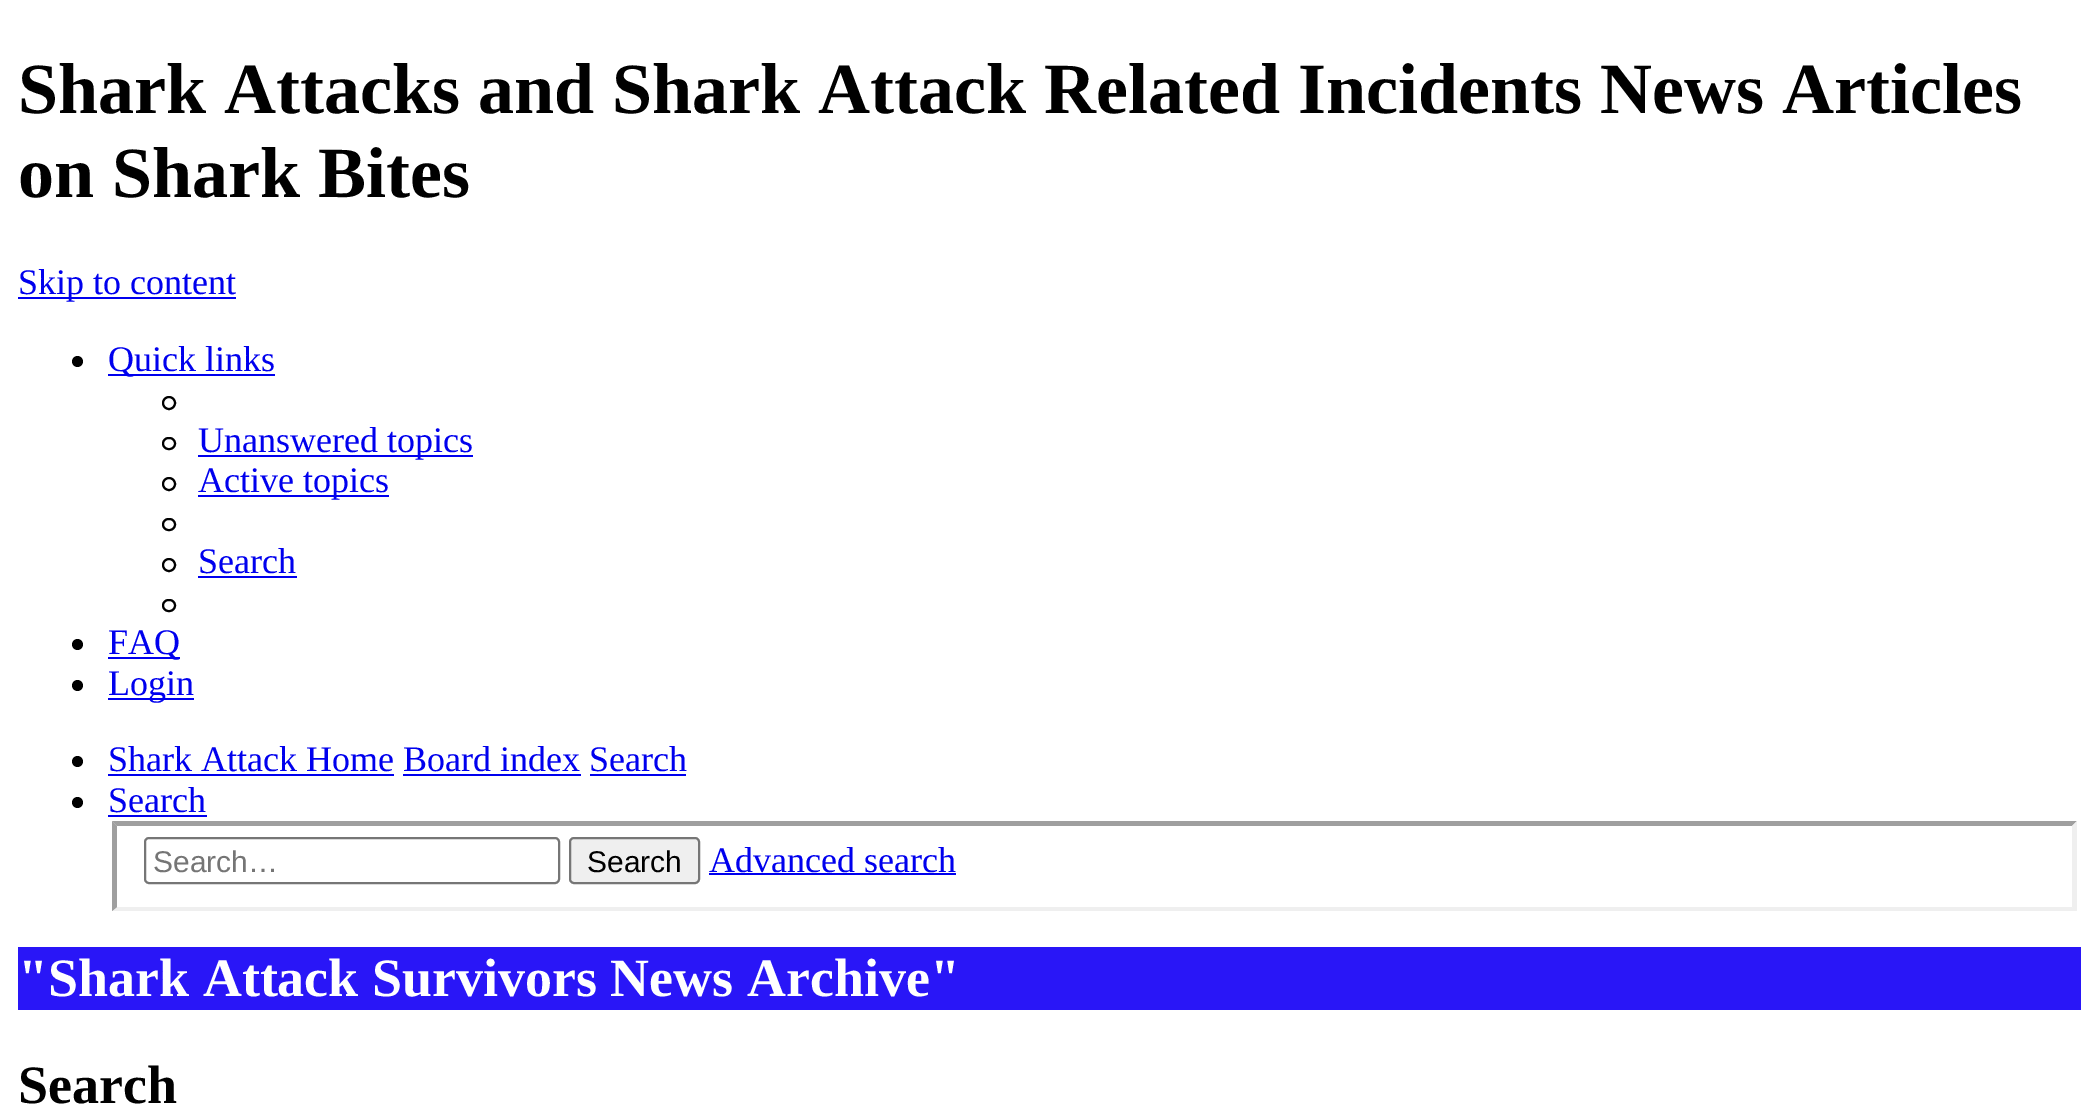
%!PS
<< /PageSize [2099 1118] >> setpagedevice
/rgb { 3 { 255 div 3 1 roll } repeat setrgbcolor } def
/font { [ exch dup neg 0 0 3 -1 roll 0 0 ] selectfont } def
/text { moveto show } def
/circle { newpath 0 360 arc closepath } def
/roundrect { 5 dict begin { /r /h /w /y /x } { exch def } forall
  x r add y moveto x w add y 2 copy h add r arct x w add y h add x 1 index r arct
  x y h add x y r arct x y 2 copy exch w add exch r arct closepath end } def
0 1118 translate 1 -1 scale
4 setmiterlimit
255 255 255 rgb
0 0 2099 1118 rectfill
0 0 238 rgb
18 297 218 2 rectfill
0 0 0 rgb
77.5 361.5 5.5 circle fill
0 0 238 rgb
108 374 167 2 rectfill
0 0 0 rgb
2 setlinewidth
169 403 6 circle stroke
163 438 12 11 5.5 roundrect stroke
0 0 238 rgb
198 455 275 2 rectfill
0 0 0 rgb
169 484 6 circle stroke
0 0 238 rgb
198 495 191 2 rectfill
0 0 0 rgb
163 519 12 11 5.5 roundrect stroke
169 565 6 circle stroke
0 0 238 rgb
198 576 99 2 rectfill
0 0 0 rgb
163 600 12 11 5.5 roundrect stroke
77.5 644.5 5.5 circle fill
0 0 238 rgb
108 657 72 2 rectfill
0 0 0 rgb
77.5 685.5 5.5 circle fill
0 0 238 rgb
108 698 86 2 rectfill
0 0 0 rgb
77.5 761.5 5.5 circle fill
0 0 238 rgb
108 774 286 2 rectfill
403 774 178 2 rectfill
590 774 96 2 rectfill
0 0 0 rgb
77.5 802.5 5.5 circle fill
0 0 238 rgb
108 815 99 2 rectfill
159 159 159 rgb
112 821 moveto 1965 0 rlineto -5 5 rlineto -1955 0 rlineto closepath fill
239 239 239 rgb
2077 821 moveto 0 90 rlineto -5 -4 rlineto 0 -81 rlineto closepath fill
2077 911 moveto -1965 0 rlineto 5 -4 rlineto 1955 0 rlineto closepath fill
159 159 159 rgb
112 911 moveto 0 -90 rlineto 5 5 rlineto 0 81 rlineto closepath fill
118 118 118 rgb
145 838 414 45 4 roundrect stroke
239 239 239 rgb
570 838 129 45 4 roundrect gsave fill grestore
118 118 118 rgb
stroke
0 0 238 rgb
709 873 247 2 rectfill
41 22 247 rgb
18 947 2063 63 rectfill
/LiberationSerif-Bold 72 font
0 0 0 rgb
(Shark Attacks and Shark Attack Related Incidents News Articles) 18 113 text
(on Shark Bites) 18 197 text
/LiberationSerif-Regular 36 font
0 0 238 rgb
(Skip to content) 18 294 text
(Quick links) 108 371 text
(Unanswered topics) 198 452 text
(Active topics) 198 492 text
(Search) 198 573 text
(FAQ) 108 654 text
(Login) 108 695 text
(Shark Attack Home Board index Search) 108 771 text
(Search) 108 812 text
/LiberationSans-Regular 30 font
117 117 117 rgb
(Search…) 153 872 text
0 0 0 rgb
(Search) 587 872 text
/LiberationSerif-Regular 36 font
0 0 238 rgb
(Advanced search) 709 872 text
/LiberationSerif-Bold 54 font
255 255 255 rgb
("Shark Attack Survivors News Archive") 18 996 text
0 0 0 rgb
(Search) 18 1103 text
showpage
